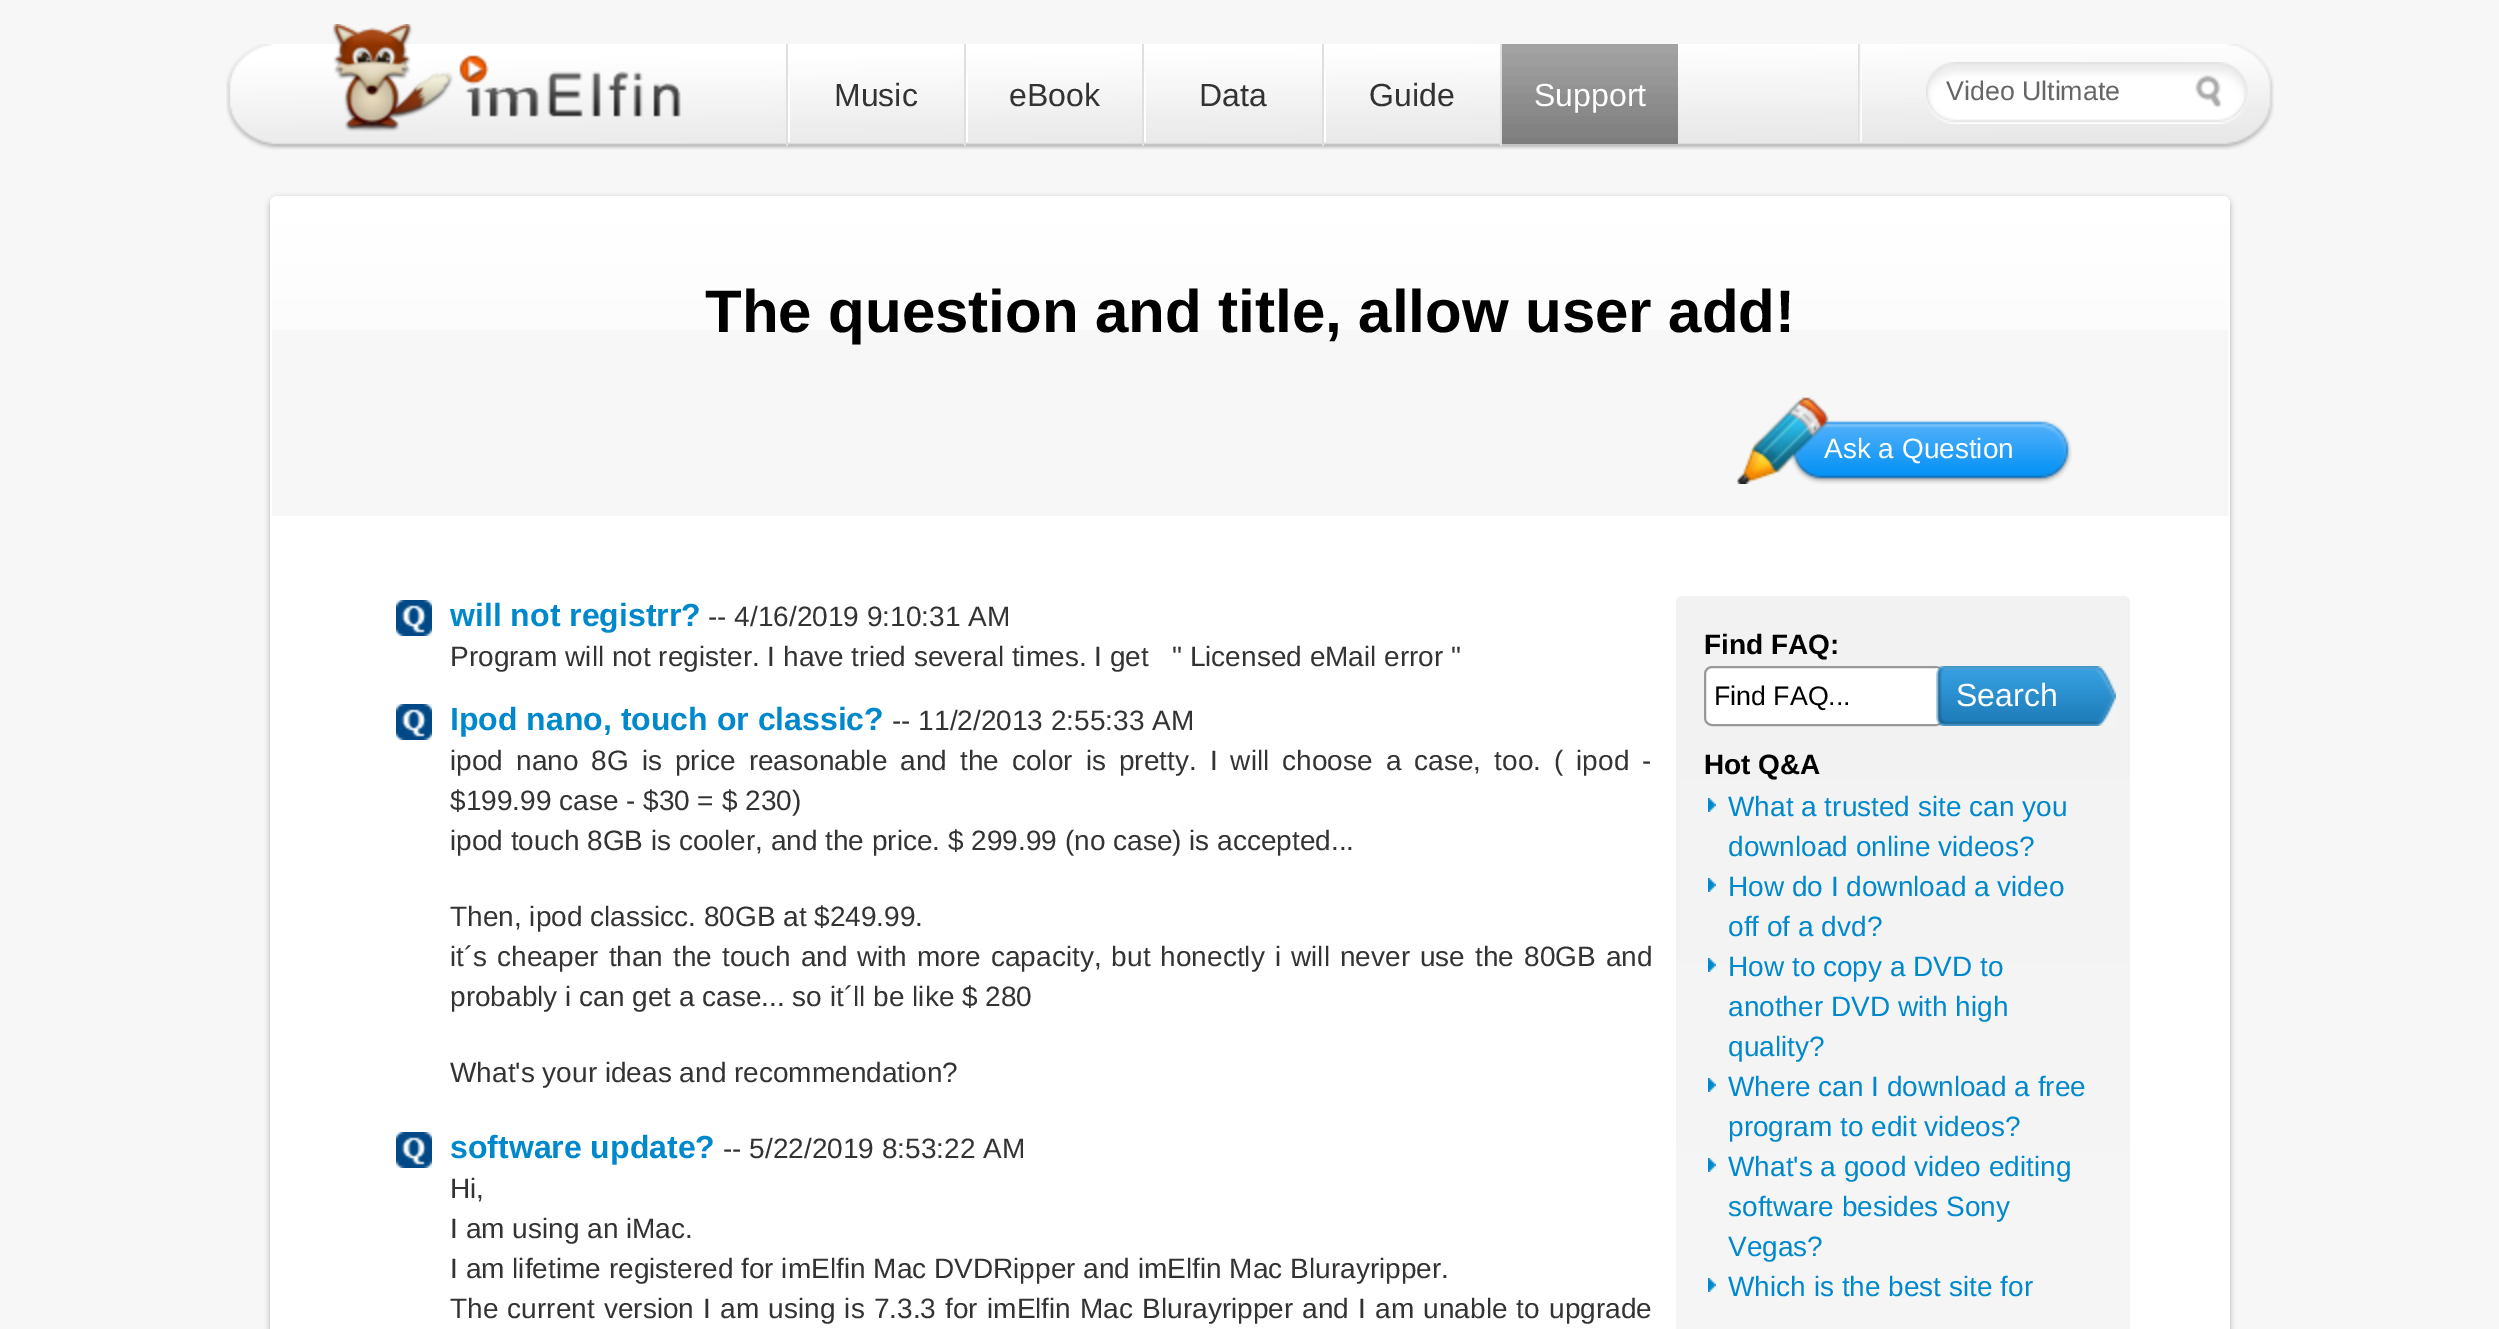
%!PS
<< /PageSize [2499 1329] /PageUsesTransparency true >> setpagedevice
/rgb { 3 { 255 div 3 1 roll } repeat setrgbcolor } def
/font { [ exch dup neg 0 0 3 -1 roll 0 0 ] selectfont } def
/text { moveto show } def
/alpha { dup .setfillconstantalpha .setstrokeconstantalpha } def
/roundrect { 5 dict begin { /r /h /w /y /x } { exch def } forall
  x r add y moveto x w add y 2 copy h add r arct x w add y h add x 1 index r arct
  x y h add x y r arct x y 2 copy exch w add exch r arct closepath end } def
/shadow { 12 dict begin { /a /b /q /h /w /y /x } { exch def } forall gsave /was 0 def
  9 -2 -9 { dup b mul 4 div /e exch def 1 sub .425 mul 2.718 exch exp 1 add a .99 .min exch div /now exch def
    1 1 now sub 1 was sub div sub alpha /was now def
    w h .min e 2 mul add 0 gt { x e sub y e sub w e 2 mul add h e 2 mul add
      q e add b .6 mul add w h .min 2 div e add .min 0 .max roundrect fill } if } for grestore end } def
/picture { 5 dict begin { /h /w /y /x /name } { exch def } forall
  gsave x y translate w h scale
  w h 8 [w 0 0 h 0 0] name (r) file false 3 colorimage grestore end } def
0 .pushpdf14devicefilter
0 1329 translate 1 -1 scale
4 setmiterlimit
247 247 247 rgb
0 0 2499 1329 rectfill
(img_01.rgb) 226 44 2048 106 picture
(img_02.rgb) 332 24 349 108 picture
(img_03.rgb) 1858 44 4 98 picture
223 223 223 rgb
786 44 2 102 rectfill
255 255 255 rgb
788 75 2 67 rectfill
223 223 223 rgb
964 44 2 102 rectfill
255 255 255 rgb
966 73 2 69 rectfill
223 223 223 rgb
1142 44 2 102 rectfill
255 255 255 rgb
1144 71 2 71 rectfill
223 223 223 rgb
1322 44 2 102 rectfill
255 255 255 rgb
1324 69 2 73 rectfill
223 223 223 rgb
1500 44 2 102 rectfill
(img_04.rgb) 1502 44 176 100 picture
(img_05.rgb) 1926 62 322 62 picture
0 0 0 rgb
270 198 1960 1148 8 3 0.3 shadow
255 255 255 rgb
270 196 1960 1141 8 roundrect fill
247 247 247 rgb
278 196 moveto 1944 0 rlineto 4.5 0 8 3.5 8 8 rcurveto 0 312 rlineto -1960 0 rlineto 0 -312 rlineto 0 -4.5 3.5 -8 8 -8 rcurveto closepath fill
(img_06.rgb) 270 198 1960 132 picture
255 255 255 rgb
278 196 moveto -2 0 -4 1 -6 2 rcurveto 2 2 rlineto 1 -1 2 -2 4 -2 rcurveto 1944 0 rlineto 2 0 3 1 4 2 rcurveto 2 -2 rlineto -2 -1 -4 -2 -6 -2 rcurveto closepath fill
2230 516 moveto 0 -312 rlineto 0 -2 -1 -4 -2 -6 rcurveto -2 2 rlineto 1 1 2 2 2 4 rcurveto 0 310 rlineto closepath fill
270 516 moveto 2 -2 rlineto 0 -310 rlineto 0 -2 1 -3 2 -4 rcurveto -2 -2 rlineto -1 2 -2 4 -2 6 rcurveto closepath fill
(img_07.rgb) 1736 397 336 87 picture
(img_08.rgb) 396 600 36 36 picture
gsave 1676 596 454 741 8 roundrect clip newpath
<< /ShadingType 2 /ColorSpace /DeviceRGB /Coords [1676 596 1676 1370] /Extend [true true] /Function << /FunctionType 3 /Domain [0 1] /Functions [<< /FunctionType 2 /Domain [0 1] /C0 [0.949 0.949 0.949] /C1 [0.957 0.957 0.957] /N 1 >> << /FunctionType 2 /Domain [0 1] /C0 [0.957 0.957 0.957] /C1 [0.961 0.961 0.961] /N 1 >>] /Bounds [0.5] /Encode [0 1 0 1] >> >> shfill grestore
1705 667 238 58 7 roundrect gsave fill grestore
153 153 153 rgb
2 setlinewidth
stroke
(img_09.rgb) 1936 666 180 60 picture
(img_10.rgb) 1708 798 8 14 picture
(img_11.rgb) 1708 878 8 14 picture
(img_12.rgb) 1708 958 8 14 picture
(img_12.rgb) 1708 1078 8 14 picture
(img_12.rgb) 1708 1158 8 14 picture
(img_13.rgb) 1708 1278 8 14 picture
(img_08.rgb) 396 704 36 36 picture
(img_08.rgb) 396 1132 36 36 picture
/LiberationSans-Regular 32 font
51 51 51 rgb
(Music) 834 106 text
(eBook) 1009 106 text
(Data) 1199 106 text
(Guide) 1369 106 text
255 255 255 rgb
(Support) 1534 106 text
/LiberationSans-Regular 26.75 font
102 102 102 rgb
(Video Ultimate) 1946 100 text
/LiberationSans-Bold 60 font
0 0 0 rgb
(The question and title, allow user add!) 705 332 text
/LiberationSans-Regular 28 font
255 255 255 rgb
(Ask a Question) 1824 458 text
/LiberationSans-Bold 32 font
0 136 204 rgb
(will not registrr?) 450 626 text
/LiberationSans-Regular 28 font
51 51 51 rgb
(-- 4/16/2019 9:10:31 AM) 708 626 text
(Program will not register. I have tried several times. I get   " Licensed eMail error ") 450 666 text
/LiberationSans-Bold 28 font
0 0 0 rgb
(Find FAQ:) 1704 654 text
/LiberationSans-Regular 26.75 font
(Find FAQ...) 1714 705 text
/LiberationSans-Regular 32 font
255 255 255 rgb
(Search) 1956 706 text
/LiberationSans-Bold 28 font
0 0 0 rgb
(Hot Q&A) 1704 774 text
/LiberationSans-Regular 28 font
0 136 204 rgb
(What a trusted site can you) 1728 816 text
(download online videos?) 1728 856 text
(How do I download a video) 1728 896 text
(off of a dvd?) 1728 936 text
(How to copy a DVD to) 1728 976 text
(another DVD with high) 1728 1016 text
(quality?) 1728 1056 text
(Where can I download a free) 1728 1096 text
(program to edit videos?) 1728 1136 text
(What's a good video editing) 1728 1176 text
(software besides Sony) 1728 1216 text
(Vegas?) 1728 1256 text
(Which is the best site for) 1728 1296 text
/LiberationSans-Bold 32 font
(Ipod nano, touch or classic?) 450 730 text
/LiberationSans-Regular 28 font
51 51 51 rgb
(-- 11/2/2013 2:55:33 AM) 892 730 text
450 770 moveto 5.25 0 32 (ipod nano 8G is price reasonable and the color is pretty. I will choose a case, too. \( ipod -) widthshow
($199.99 case - $30 = $ 230\)) 450 810 text
(ipod touch 8GB is cooler, and the price. $ 299.99 \(no case\) is accepted...) 450 850 text
(Then, ipod classicc. 80GB at $249.99.) 450 926 text
450 966 moveto 2.25 0 32 (it´s cheaper than the touch and with more capacity, but honectly i will never use the 80GB and) widthshow
(probably i can get a case... so it´ll be like $ 280) 450 1006 text
(What's your ideas and recommendation?) 450 1082 text
/LiberationSans-Bold 32 font
0 136 204 rgb
(software update?) 450 1158 text
/LiberationSans-Regular 28 font
51 51 51 rgb
(-- 5/22/2019 8:53:22 AM) 723 1158 text
(Hi,) 450 1198 text
(I am using an iMac.) 450 1238 text
(I am lifetime registered for imElfin Mac DVDRipper and imElfin Mac Blurayripper.) 450 1278 text
450 1318 moveto 1.4 0 32 (The current version I am using is 7.3.3 for imElfin Mac Blurayripper and I am unable to upgrade) widthshow
.poppdf14devicefilter showpage
